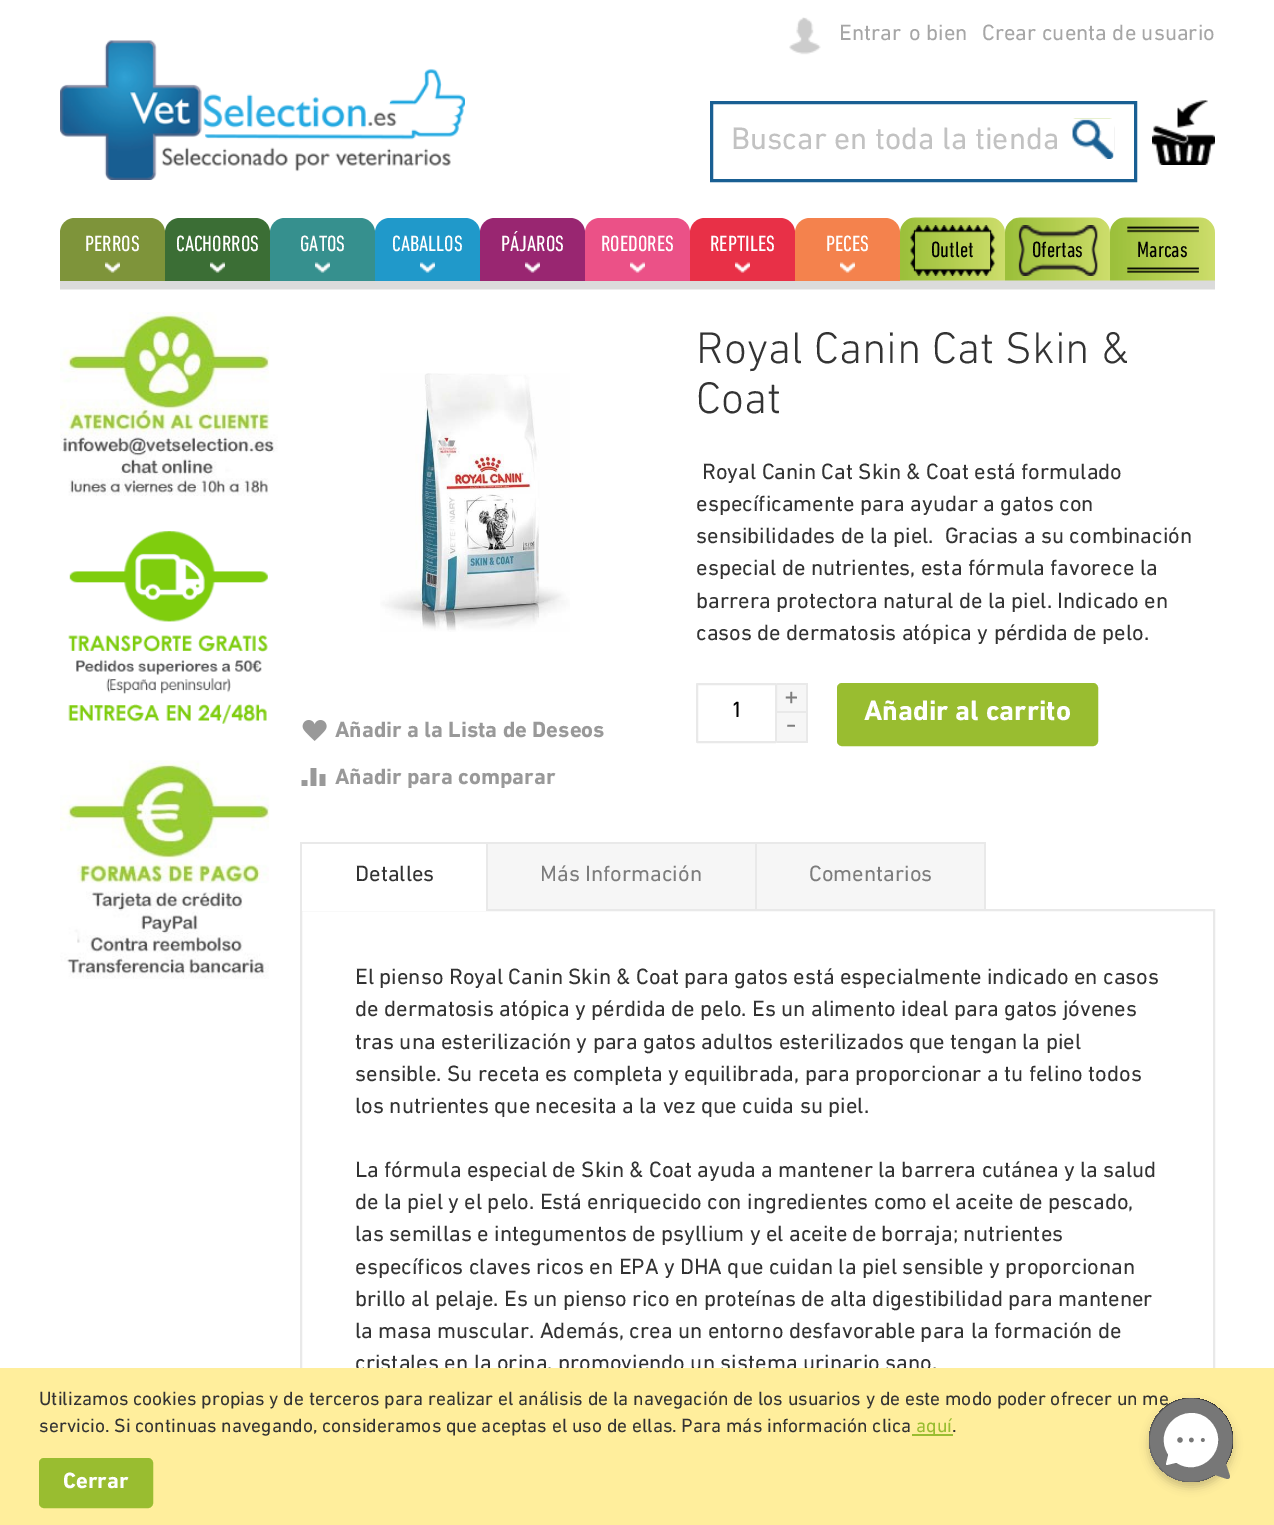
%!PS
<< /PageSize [1274 1525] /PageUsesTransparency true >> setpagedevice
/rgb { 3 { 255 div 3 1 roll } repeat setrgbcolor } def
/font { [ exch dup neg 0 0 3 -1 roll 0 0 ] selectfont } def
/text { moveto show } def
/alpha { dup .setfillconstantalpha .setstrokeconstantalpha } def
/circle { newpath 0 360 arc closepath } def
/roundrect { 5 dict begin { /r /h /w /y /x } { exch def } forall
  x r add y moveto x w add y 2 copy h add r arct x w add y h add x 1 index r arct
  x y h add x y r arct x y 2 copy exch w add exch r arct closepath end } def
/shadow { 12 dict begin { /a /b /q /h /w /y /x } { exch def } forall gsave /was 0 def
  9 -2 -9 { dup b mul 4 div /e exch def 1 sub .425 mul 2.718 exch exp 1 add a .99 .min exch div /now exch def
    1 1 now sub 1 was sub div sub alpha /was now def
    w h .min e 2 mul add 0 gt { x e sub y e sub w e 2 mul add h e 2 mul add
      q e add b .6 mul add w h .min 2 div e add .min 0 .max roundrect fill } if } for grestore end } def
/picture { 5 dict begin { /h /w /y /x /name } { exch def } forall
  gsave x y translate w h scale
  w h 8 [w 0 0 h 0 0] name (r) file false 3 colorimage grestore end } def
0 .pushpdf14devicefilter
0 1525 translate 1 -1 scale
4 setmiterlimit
255 255 255 rgb
0 0 1274 1525 rectfill
(img_01.rgb) 789 17 32 38 picture
(img_02.rgb) 60 40 405 140 picture
25 95 147 rgb
3 setlinewidth
711.5 102.5 424 78 rectstroke
(img_03.rgb) 1072 118 43 41 picture
(img_04.rgb) 1152 100 63 65 picture
(img_05.rgb) 60 280 1155 10 picture
126 148 58 rgb
75 218 moveto 75 0 rlineto 8.5 0 15 6.5 15 15 rcurveto 0 48 rlineto -105 0 rlineto 0 -48 rlineto 0 -8.5 6.5 -15 15 -15 rcurveto closepath fill
(img_06.rgb) 105 262 15 11 picture
59 110 53 rgb
180 218 moveto 75 0 rlineto 8.5 0 15 6.5 15 15 rcurveto 0 48 rlineto -105 0 rlineto 0 -48 rlineto 0 -8.5 6.5 -15 15 -15 rcurveto closepath fill
(img_07.rgb) 210 262 15 11 picture
54 144 142 rgb
285 218 moveto 75 0 rlineto 8.5 0 15 6.5 15 15 rcurveto 0 48 rlineto -105 0 rlineto 0 -48 rlineto 0 -8.5 6.5 -15 15 -15 rcurveto closepath fill
(img_08.rgb) 315 262 15 11 picture
32 153 202 rgb
390 218 moveto 75 0 rlineto 8.5 0 15 6.5 15 15 rcurveto 0 48 rlineto -105 0 rlineto 0 -48 rlineto 0 -8.5 6.5 -15 15 -15 rcurveto closepath fill
(img_09.rgb) 420 262 15 11 picture
153 38 113 rgb
495 218 moveto 75 0 rlineto 8.5 0 15 6.5 15 15 rcurveto 0 48 rlineto -105 0 rlineto 0 -48 rlineto 0 -8.5 6.5 -15 15 -15 rcurveto closepath fill
(img_10.rgb) 525 262 15 11 picture
235 81 135 rgb
600 218 moveto 75 0 rlineto 8.5 0 15 6.5 15 15 rcurveto 0 48 rlineto -105 0 rlineto 0 -48 rlineto 0 -8.5 6.5 -15 15 -15 rcurveto closepath fill
(img_11.rgb) 630 262 15 11 picture
232 48 71 rgb
705 218 moveto 75 0 rlineto 8.5 0 15 6.5 15 15 rcurveto 0 48 rlineto -105 0 rlineto 0 -48 rlineto 0 -8.5 6.5 -15 15 -15 rcurveto closepath fill
(img_12.rgb) 735 262 15 11 picture
244 130 77 rgb
810 218 moveto 75 0 rlineto 8.5 0 15 6.5 15 15 rcurveto 0 48 rlineto -105 0 rlineto 0 -48 rlineto 0 -8.5 6.5 -15 15 -15 rcurveto closepath fill
(img_13.rgb) 840 262 15 11 picture
(img_14.rgb) 900 217 105 64 picture
(img_15.rgb) 910 225 85 51 picture
(img_16.rgb) 1005 217 105 64 picture
(img_17.rgb) 1018 225 80 51 picture
(img_14.rgb) 1110 217 105 64 picture
(img_18.rgb) 1127 226 72 47 picture
(img_19.rgb) 60 312 218 184 picture
(img_20.rgb) 68 531 200 193 picture
(img_21.rgb) 60 760 210 219 picture
246 246 246 rgb
777 685 29 26 rectfill
233 233 233 rgb
777 683 30 2 rectfill
806 683 2 60 rectfill
777 711 30 2 rectfill
2 setlinewidth
697 684 79 58 0.5 roundrect stroke
246 246 246 rgb
777 713 29 28 rectfill
233 233 233 rgb
777 741 30 2 rectfill
153 189 48 rgb
838 684 259 61 4 roundrect gsave fill grestore
stroke
(img_22.rgb) 380 373 190 259 picture
(img_23.rgb) 302 720 25 21 picture
(img_24.rgb) 301 768 25 18 picture
233 233 233 rgb
301 910 913 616 rectstroke
255 255 255 rgb
302 909 184 2 rectfill
233 233 233 rgb
300 842 686 2 rectfill
300 842 2 69 rectfill
246 246 246 rgb
488 844 267 65 rectfill
233 233 233 rgb
486 842 2 67 rectfill
246 246 246 rgb
757 844 227 65 rectfill
233 233 233 rgb
984 842 2 67 rectfill
755 842 2 67 rectfill
/DINNext-Regular 22.5 font
166 166 166 rgb
(Entrar) 839 40 text
(o bien) 909 40 text
(Crear cuenta de usuario) 982 40 text
/DINNext-Regular 31.5 font
194 194 194 rgb
(Buscar en toda la tienda) 731 149 text
/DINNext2-Regular 22.5 font
255 255 255 rgb
(PERROS) 85 251 text
(CACHORROS) 176 251 text
(GATOS) 300 251 text
(CABALLOS) 392 251 text
(PÁJAROS) 501 251 text
(ROEDORES) 601 251 text
(REPTILES) 710 251 text
(PECES) 826 251 text
0 0 0 rgb
(Outlet) 931 257 text
(Ofertas) 1032 257 text
(Marcas) 1137 257 text
/DINNext-Light 45 font
51 51 51 rgb
(Royal Canin Cat Skin &) 696 363 text
(Coat) 696 413 text
/DINNext-Regular 22.5 font
(Royal Canin Cat Skin & Coat está formulado) 702 479 text
(específicamente para ayudar a gatos con) 696 511 text
(sensibilidades de la piel.  Gracias a su combinación) 696 543 text
(especial de nutrientes, esta fórmula favorece la) 696 575 text
(barrera protectora natural de la piel. Indicado en) 696 608 text
(casos de dermatosis atópica y pérdida de pelo.) 696 640 text
/DINNext-Regular 27 font
125 125 125 rgb
(+) 784 705 text
/DINNext-Regular 22.5 font
0 0 0 rgb
(1) 731 717 text
/DINNext-Regular 27 font
125 125 125 rgb
(-) 786 733 text
/DINNext-Bold 28.5 font
255 255 255 rgb
(Añadir al carrito) 864 720 text
/DINNext-Bold 22.5 font
153 153 153 rgb
(Añadir a la Lista de Deseos) 335 737 text
(Añadir para comparar) 335 784 text
/DINNext-Regular 22.5 font
51 51 51 rgb
(Detalles) 355 881 text
125 125 125 rgb
(Más Información) 540 881 text
(Comentarios) 809 881 text
51 51 51 rgb
(El pienso Royal Canin Skin & Coat para gatos está especialmente indicado en casos) 355 984 text
(de dermatosis atópica y pérdida de pelo. Es un alimento ideal para gatos jóvenes) 355 1016 text
(tras una esterilización y para gatos adultos esterilizados que tengan la piel) 355 1049 text
(sensible. Su receta es completa y equilibrada, para proporcionar a tu felino todos) 355 1081 text
(los nutrientes que necesita a la vez que cuida su piel.) 355 1113 text
(La fórmula especial de Skin & Coat ayuda a mantener la barrera cutánea y la salud) 355 1177 text
(de la piel y el pelo. Está enriquecido con ingredientes como el aceite de pescado,) 355 1209 text
(las semillas e integumentos de psyllium y el aceite de borraja; nutrientes) 355 1241 text
(específicos claves ricos en EPA y DHA que cuidan la piel sensible y proporcionan) 355 1274 text
(brillo al pelaje. Es un pienso rico en proteínas de alta digestibilidad para mantener) 355 1306 text
(la masa muscular. Además, crea un entorno desfavorable para la formación de) 355 1338 text
(cristales en la orina, promoviendo un sistema urinario sano.) 355 1370 text
255 238 156 rgb
0 1368 1274 157 rectfill
/DINNext-Regular 19.5 font
51 51 51 rgb
(Utilizamos cookies propias y de terceros para realizar el análisis de la navegación de los usuarios y de este modo poder ofrecer un me) 39 1405 text
(servicio. Si continuas navegando, consideramos que aceptas el uso de ellas. Para más información clica) 39 1432 text
153 189 48 rgb
912 1434 41 2 rectfill
(aquí) 916 1432 text
51 51 51 rgb
(.) 952 1432 text
153 189 48 rgb
40 1459 112 48 4 roundrect gsave fill grestore
stroke
/DINNext-Bold 22.5 font
255 255 255 rgb
(Cerrar) 63 1488 text
0 0 0 rgb
1149 1403 84 84 42 4.5 0.2 shadow
gsave 1191 1440 42 circle clip newpath
<< /ShadingType 2 /ColorSpace /DeviceRGB /Coords [1149 1482 1233 1398] /Extend [true true] /Function << /FunctionType 2 /Domain [0 1] /C0 [0.467 0.467 0.467] /C1 [0.133 0.133 0.133] /N 1 >> >> shfill grestore
119 119 119 rgb
1221 1411 moveto -17 -17 -44 -17 -60 1 rcurveto -15 16 -15 41 1 57 rcurveto 13 14 34 16 50 7 rcurveto 1 -1 2 -1 3 -1 rcurveto 12 4 rlineto 2 0 3 -1 3 -3 rcurveto -4 -12 rlineto 0 -1 0 -2 1 -3 rcurveto 9 -16 7 -37 -6 -50 rcurveto closepath fill
255 255 255 rgb
1210 1459 moveto 11 -11 11 -28 -1 -39 rcurveto -10 -10 -27 -9 -37 1 rcurveto -9 9 -11 22 -4 33 rcurveto 0 2 rlineto -2 8 rlineto 0 0 0 1 1 1 rcurveto 8 -2 rlineto 2 0 rlineto 10 7 24 5 33 -4 rcurveto closepath fill
(img_25.rgb) 1177 1437 28 6 picture
.poppdf14devicefilter showpage
